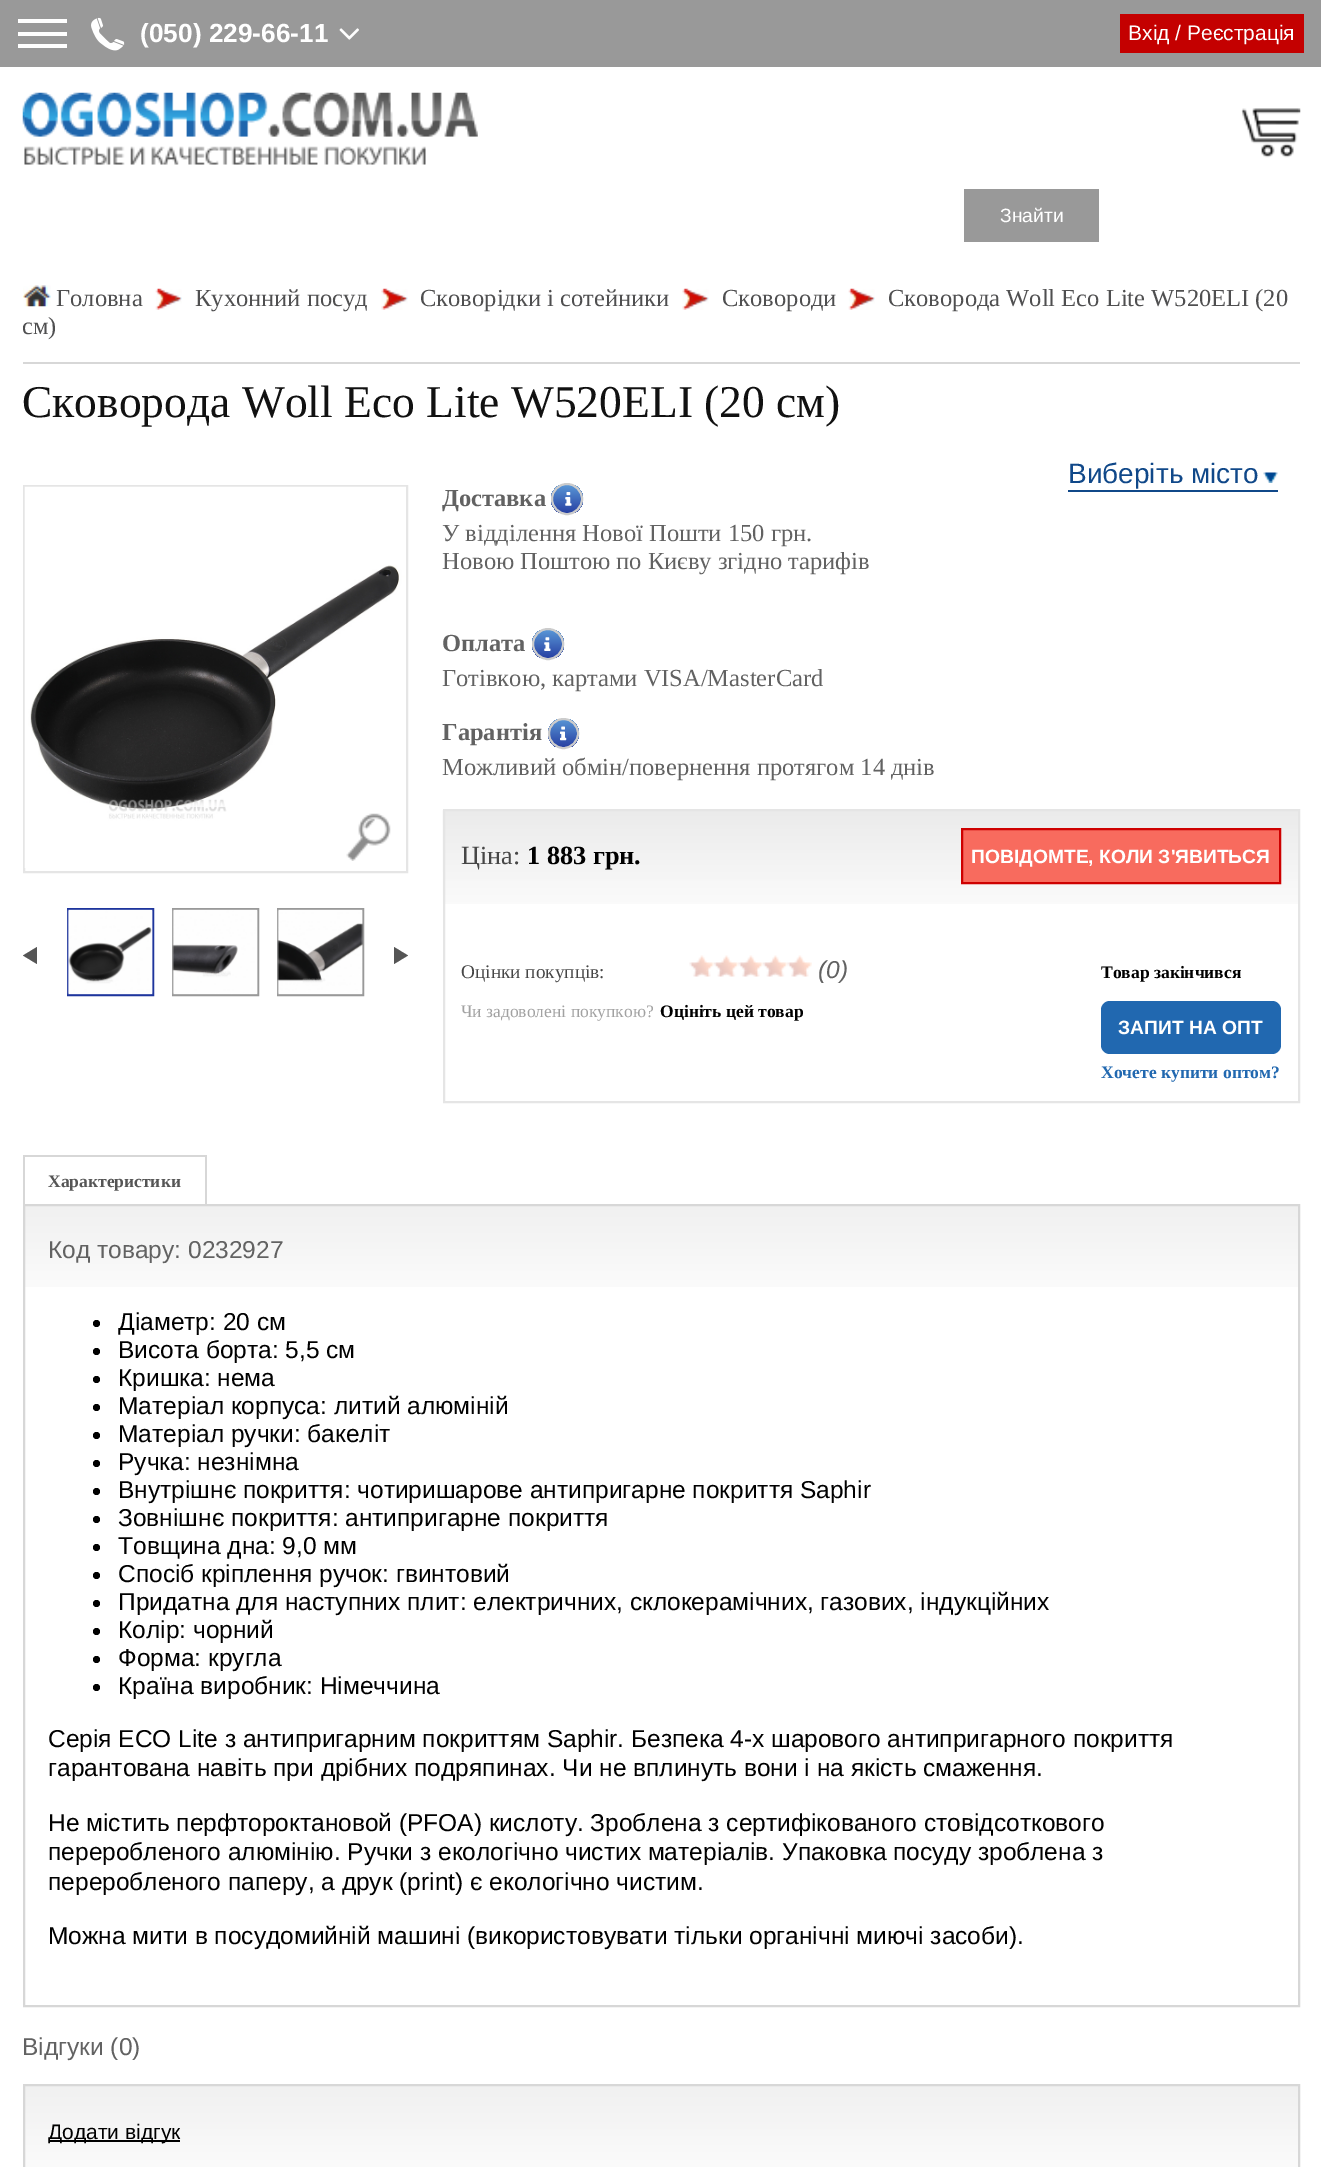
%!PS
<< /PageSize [1321 2167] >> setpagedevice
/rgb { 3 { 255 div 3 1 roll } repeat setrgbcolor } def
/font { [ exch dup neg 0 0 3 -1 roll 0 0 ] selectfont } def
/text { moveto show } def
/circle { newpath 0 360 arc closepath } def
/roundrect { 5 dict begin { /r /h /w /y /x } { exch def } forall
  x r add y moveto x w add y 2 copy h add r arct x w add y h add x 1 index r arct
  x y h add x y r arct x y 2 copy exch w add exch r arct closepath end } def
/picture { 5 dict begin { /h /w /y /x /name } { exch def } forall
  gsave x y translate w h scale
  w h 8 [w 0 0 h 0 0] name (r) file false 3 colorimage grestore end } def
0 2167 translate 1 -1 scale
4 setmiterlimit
255 255 255 rgb
0 0 1321 2167 rectfill
153 153 153 rgb
0 0 1321 67 rectfill
255 255 255 rgb
18 32 49 4 rectfill
18 19 49 4 rectfill
18 44 49 4 rectfill
(img_01.rgb) 91 17 34 34 picture
(img_02.rgb) 339 28 20 12 picture
196 0 0 rgb
1120 14 184 39 rectfill
(img_03.rgb) 22 92 456 73 picture
(img_04.rgb) 1241 108 60 50 picture
153 153 153 rgb
964 189 135 53 rectfill
215 215 215 rgb
23 362 1277 2 rectfill
(img_05.rgb) 22 285 29 22 picture
(img_06.rgb) 155 288 27 22 picture
(img_07.rgb) 381 288 27 22 picture
(img_08.rgb) 682 288 27 22 picture
(img_09.rgb) 848 288 27 22 picture
229 229 229 rgb
2 setlinewidth
24 486 383 386 rectstroke
(img_10.rgb) 24 486 382 382 picture
(img_11.rgb) 346 813 45 48 picture
85 85 85 rgb
37 947 moveto 0 17 rlineto -14 -8.5 rlineto closepath fill
30 53 157 rgb
68 909 85 86 rectstroke
(img_12.rgb) 67 909 86 86 picture
153 153 153 rgb
173 909 85 86 rectstroke
(img_13.rgb) 172 909 86 86 picture
278 909 85 86 rectstroke
(img_14.rgb) 277 909 86 86 picture
85 85 85 rgb
394 964 moveto 0 -17 rlineto 14 8.5 rlineto closepath fill
(img_15.rgb) 1263 472 15 11 picture
16 72 137 rgb
1068 490 210 2 rectfill
gsave
551 483 32 32 16 roundrect clip newpath
gsave 551 485 moveto 32 0 rlineto 0 28 rlineto -32 0 rlineto closepath clip newpath
<< /ShadingType 2 /ColorSpace /DeviceRGB /Coords [567 485 567 513] /Extend [true true] /Function << /FunctionType 2 /Domain [0 1] /C0 [0.349 0.588 0.839] /C1 [0.157 0.255 0.639] /N 1 >> >> shfill grestore
grestore
204 204 204 rgb
567 499 15 circle stroke
(img_16.rgb) 565 492 7 14 picture
gsave
532 628 32 32 16 roundrect clip newpath
gsave 532 630 moveto 32 0 rlineto 0 28 rlineto -32 0 rlineto closepath clip newpath
<< /ShadingType 2 /ColorSpace /DeviceRGB /Coords [548 630 548 658] /Extend [true true] /Function << /FunctionType 2 /Domain [0 1] /C0 [0.349 0.588 0.839] /C1 [0.157 0.255 0.639] /N 1 >> >> shfill grestore
grestore
548 644 15 circle stroke
(img_17.rgb) 544 637 7 14 picture
gsave
548 718 31 31 15.5 roundrect clip newpath
gsave 548 719 moveto 31 0 rlineto 0 28 rlineto -31 0 rlineto closepath clip newpath
<< /ShadingType 2 /ColorSpace /DeviceRGB /Coords [564 719 564 747] /Extend [true true] /Function << /FunctionType 2 /Domain [0 1] /C0 [0.349 0.588 0.839] /C1 [0.157 0.255 0.639] /N 1 >> >> shfill grestore
grestore
563.5 733.5 14.5 circle stroke
(img_18.rgb) 560 726 7 15 picture
(img_19.rgb) 442 810 856 94 picture
229 229 229 rgb
444 810 855 292 rectstroke
248 107 94 rgb
962 829 moveto 318 0 rlineto 0 54 rlineto -318 0 rlineto closepath gsave fill grestore
206 0 0 rgb
stroke
(img_20.rgb) 689 955 25 22 picture
(img_21.rgb) 714 955 25 22 picture
(img_22.rgb) 738 955 25 22 picture
(img_21.rgb) 763 955 25 22 picture
(img_22.rgb) 787 955 25 22 picture
33 104 176 rgb
1101 1001 180 53 9 roundrect fill
215 215 215 rgb
23 1155 184 2 rectfill
205 1155 2 49 rectfill
23 1155 2 49 rectfill
(img_23.rgb) 25 1206 1273 81 picture
24 1205 1275 801 rectstroke
0 0 0 rgb
96.5 1323.5 3.5 circle fill
96.5 1351.5 3.5 circle fill
96.5 1379.5 3.5 circle fill
96.5 1407.5 3.5 circle fill
96.5 1435.5 3.5 circle fill
96.5 1463.5 3.5 circle fill
96.5 1491.5 3.5 circle fill
96.5 1519.5 3.5 circle fill
96.5 1547.5 3.5 circle fill
96.5 1575.5 3.5 circle fill
96.5 1603.5 3.5 circle fill
96.5 1631.5 3.5 circle fill
96.5 1659.5 3.5 circle fill
96.5 1687.5 3.5 circle fill
(img_24.rgb) 25 2086 1273 81 picture
215 215 215 rgb
24 2085 1275 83 rectstroke
0 0 0 rgb
49 2140 131 2 rectfill
/LiberationSans-Bold 26.25 font
255 255 255 rgb
(\(050\) 229-66-11) 140 42 text
/LiberationSans-Regular 21 font
(Вхід / Реєстрація) 1128 40 text
/LiberationSans-Regular 19.25 font
(Знайти) 1000 222 text
/LiberationSerif-Regular 24.5 font
79 79 80 rgb
(Головна) 56 306 text
(Кухонний посуд) 195 306 text
(Сковорідки і сотейники) 420 306 text
(Сковороди) 722 306 text
(Сковорода Woll Eco Lite W520ELI \(20) 888 306 text
gsave
23 256 1277 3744 rectclip
(см\)) 22 334 text
grestore
/LiberationSerif-Regular 45.5 font
17 17 17 rgb
(Сковорода Woll Eco Lite W520ELI \(20 см\)) 22 417 text
/LiberationSans-Regular 28 font
16 72 137 rgb
(Виберіть місто) 1068 483 text
/LiberationSerif-Bold 24.5 font
98 98 98 rgb
(Доставка) 442 506 text
/LiberationSerif-Regular 24.5 font
(У відділення Нової Пошти 150 грн.) 442 541 text
(Новою Поштою по Києву згідно тарифів) 442 569 text
/LiberationSerif-Bold 24.5 font
(Оплата) 442 651 text
/LiberationSerif-Regular 24.5 font
(Готівкою, картами VISA/MasterCard) 442 686 text
/LiberationSerif-Bold 24.5 font
(Гарантія) 442 740 text
/LiberationSerif-Regular 24.5 font
(Можливий обмін/повернення протягом 14 днів) 442 775 text
/LiberationSerif-Regular 26.25 font
70 70 70 rgb
(Ціна:) 461 864 text
/LiberationSerif-Bold 26.25 font
0 0 0 rgb
(1 883 грн.) 527 864 text
/LiberationSans-Bold 19.25 font
255 255 255 rgb
(ПОВІДОМТЕ, КОЛИ З'ЯВИТЬСЯ) 971 863 text
/LiberationSerif-Regular 19.25 font
70 70 70 rgb
(Оцінки покупців:) 461 978 text
/LiberationSans-Italic 24.5 font
98 98 98 rgb
(\(0\)) 818 978 text
/LiberationSerif-Bold 17.5 font
0 0 0 rgb
(Товар закінчився) 1101 978 text
/LiberationSans-Bold 19.25 font
255 255 255 rgb
(ЗАПИТ НА ОПТ) 1118 1034 text
/LiberationSerif-Bold 17.5 font
33 104 176 rgb
(Хочете купити оптом?) 1101 1078 text
/LiberationSerif-Regular 17.5 font
162 162 162 rgb
(Чи задоволені покупкою?) 461 1017 text
/LiberationSerif-Bold 17.5 font
0 0 0 rgb
(Оцініть цей товар) 660 1017 text
85 85 85 rgb
(Характеристики) 48 1187 text
/LiberationSans-Regular 24.5 font
98 98 98 rgb
(Код товару: 0232927) 48 1258 text
0 0 0 rgb
(Діаметр: 20 см) 118 1330 text
(Висота борта: 5,5 см) 118 1358 text
(Кришка: нема) 118 1386 text
(Матеріал корпуса: литий алюміній) 118 1414 text
(Матеріал ручки: бакеліт) 118 1442 text
(Ручка: незнімна) 118 1470 text
(Внутрішнє покриття: чотиришарове антипригарне покриття Saphir) 118 1498 text
(Зовнішнє покриття: антипригарне покриття) 118 1526 text
(Товщина дна: 9,0 мм) 118 1554 text
(Спосіб кріплення ручок: гвинтовий) 118 1582 text
(Придатна для наступних плит: електричних, склокерамічних, газових, індукційних) 118 1610 text
(Колір: чорний) 118 1638 text
(Форма: кругла) 118 1666 text
(Країна виробник: Німеччина) 118 1694 text
(Серія ECO Lite з антипригарним покриттям Saphir. Безпека 4-х шарового антипригарного покриття) 48 1747 text
(гарантована навіть при дрібних подряпинах. Чи не вплинуть вони і на якість смаження.) 48 1776 text
(Не містить перфтороктановой \(PFOA\) кислоту. Зроблена з сертифікованого стовідсоткового) 48 1831 text
(переробленого алюмінію. Ручки з екологічно чистих матеріалів. Упаковка посуду зроблена з) 48 1860 text
(переробленого паперу, а друк \(print\) є екологічно чистим.) 48 1890 text
(Можна мити в посудомийній машині \(використовувати тільки органічні миючі засоби\).) 48 1944 text
98 98 98 rgb
(Відгуки \(0\)) 22 2055 text
/LiberationSans-Regular 21 font
0 0 0 rgb
(Додати відгук) 48 2139 text
showpage
